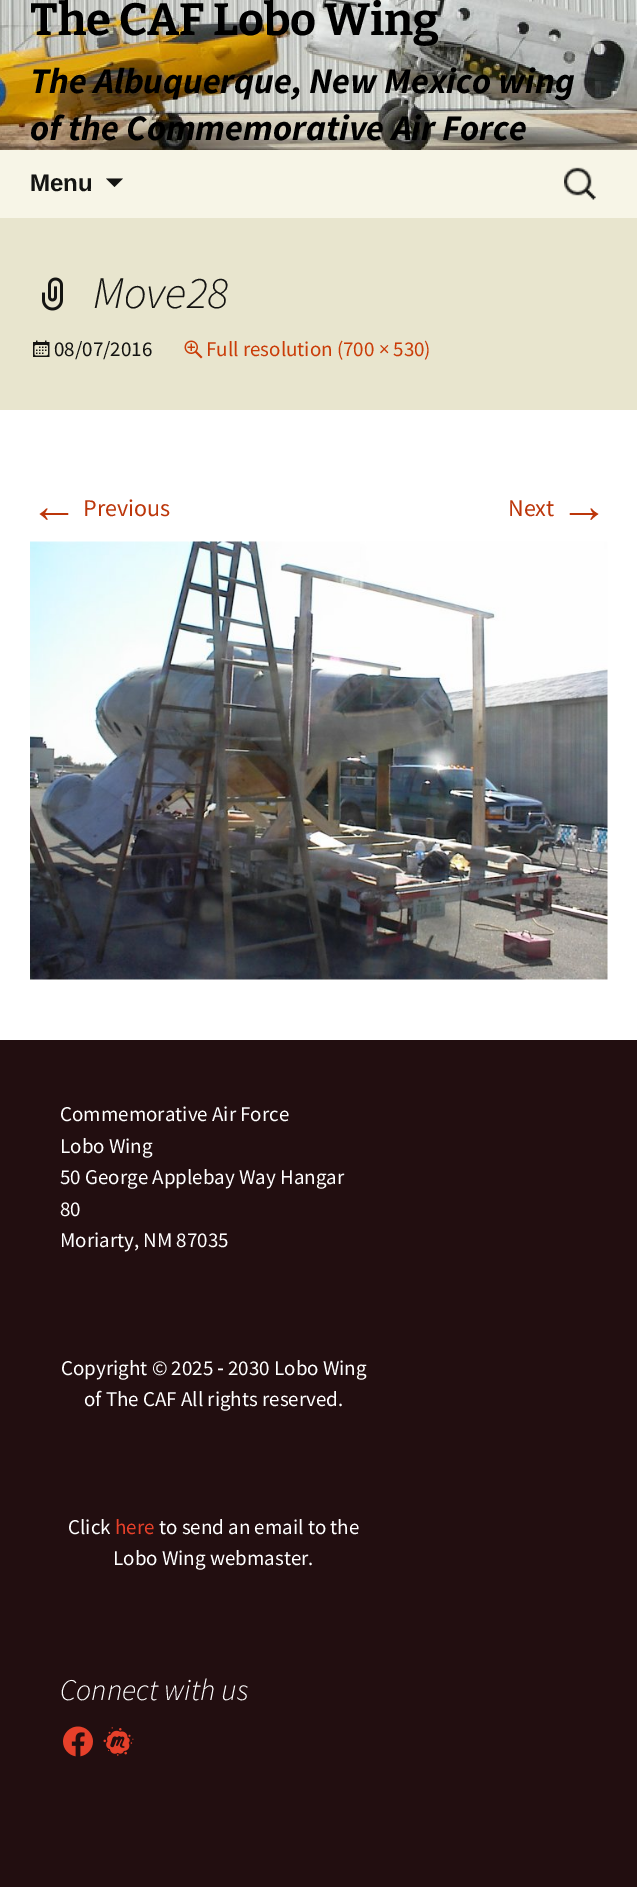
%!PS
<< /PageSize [637 1887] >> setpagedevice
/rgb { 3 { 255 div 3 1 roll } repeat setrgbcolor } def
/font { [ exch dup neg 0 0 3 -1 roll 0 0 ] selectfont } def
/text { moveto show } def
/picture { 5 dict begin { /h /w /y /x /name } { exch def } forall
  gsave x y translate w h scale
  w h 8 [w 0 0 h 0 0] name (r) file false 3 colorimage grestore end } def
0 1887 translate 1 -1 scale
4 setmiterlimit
34 14 16 rgb
0 0 637 1887 rectfill
(img_01.rgb) 0 0 637 150 picture
247 245 231 rgb
0 150 637 68 rectfill
20 20 18 rgb
106 178.5 moveto 17 0 rlineto -8.5 8.5 rlineto closepath fill
(img_02.rgb) 564 167 32 33 picture
232 229 206 rgb
0 218 637 192 rectfill
(img_03.rgb) 42 277 21 34 picture
(img_04.rgb) 33 340 17 17 picture
(img_05.rgb) 184 340 19 19 picture
255 255 255 rgb
0 410 637 630 rectfill
(img_06.rgb) 30 541 578 439 picture
(img_07.rgb) 63 1726 30 31 picture
(img_08.rgb) 103 1727 31 29 picture
/Bitter-Thin 45 font
0 0 0 rgb
(The CAF Lobo Wing) 30 35 text
/SourceSansPro-BoldItalic 36 font
(The Albuquerque, New Mexico wing) 30 93 text
(of the Commemorative Air Force) 30 140 text
/LiberationSans-Bold 24 font
20 20 18 rgb
(Menu) 30 191 text
/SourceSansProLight-LightItalic 45 font
(Move28) 93 308 text
/SourceSansPro-Regular 21 font
(08/07/2016) 54 356 text
202 60 8 rgb
(Full resolution \(700 × 530\)) 206 356 text
/LiberationSans-Regular 48 font
188 54 10 rgb
(←) 30 522 text
/SourceSansPro-Regular 24 font
(Previous) 83 516 text
(Next) 508 516 text
/LiberationSans-Regular 48 font
(→) 560 522 text
/SourceSansPro-Regular 21 font
255 255 255 rgb
(Commemorative Air Force) 60 1121 text
(Lobo Wing) 60 1153 text
(50 George Applebay Way Hangar) 60 1184 text
(80) 60 1216 text
(Moriarty, NM 87035) 60 1247 text
(Copyright © 2025) 61 1375 text
/LiberationSans-Regular 21 font
(‐) 217 1375 text
/SourceSansPro-Regular 21 font
(2030 Lobo Wing) 228 1375 text
(of The CAF All rights reserved.) 84 1406 text
(Click) 68 1534 text
230 64 42 rgb
(here) 115 1534 text
255 255 255 rgb
(to send an email to the) 159 1534 text
(Lobo Wing webmaster.) 113 1565 text
/SourceSansProLight-LightItalic 30 font
(Connect with us) 60 1700 text
showpage
